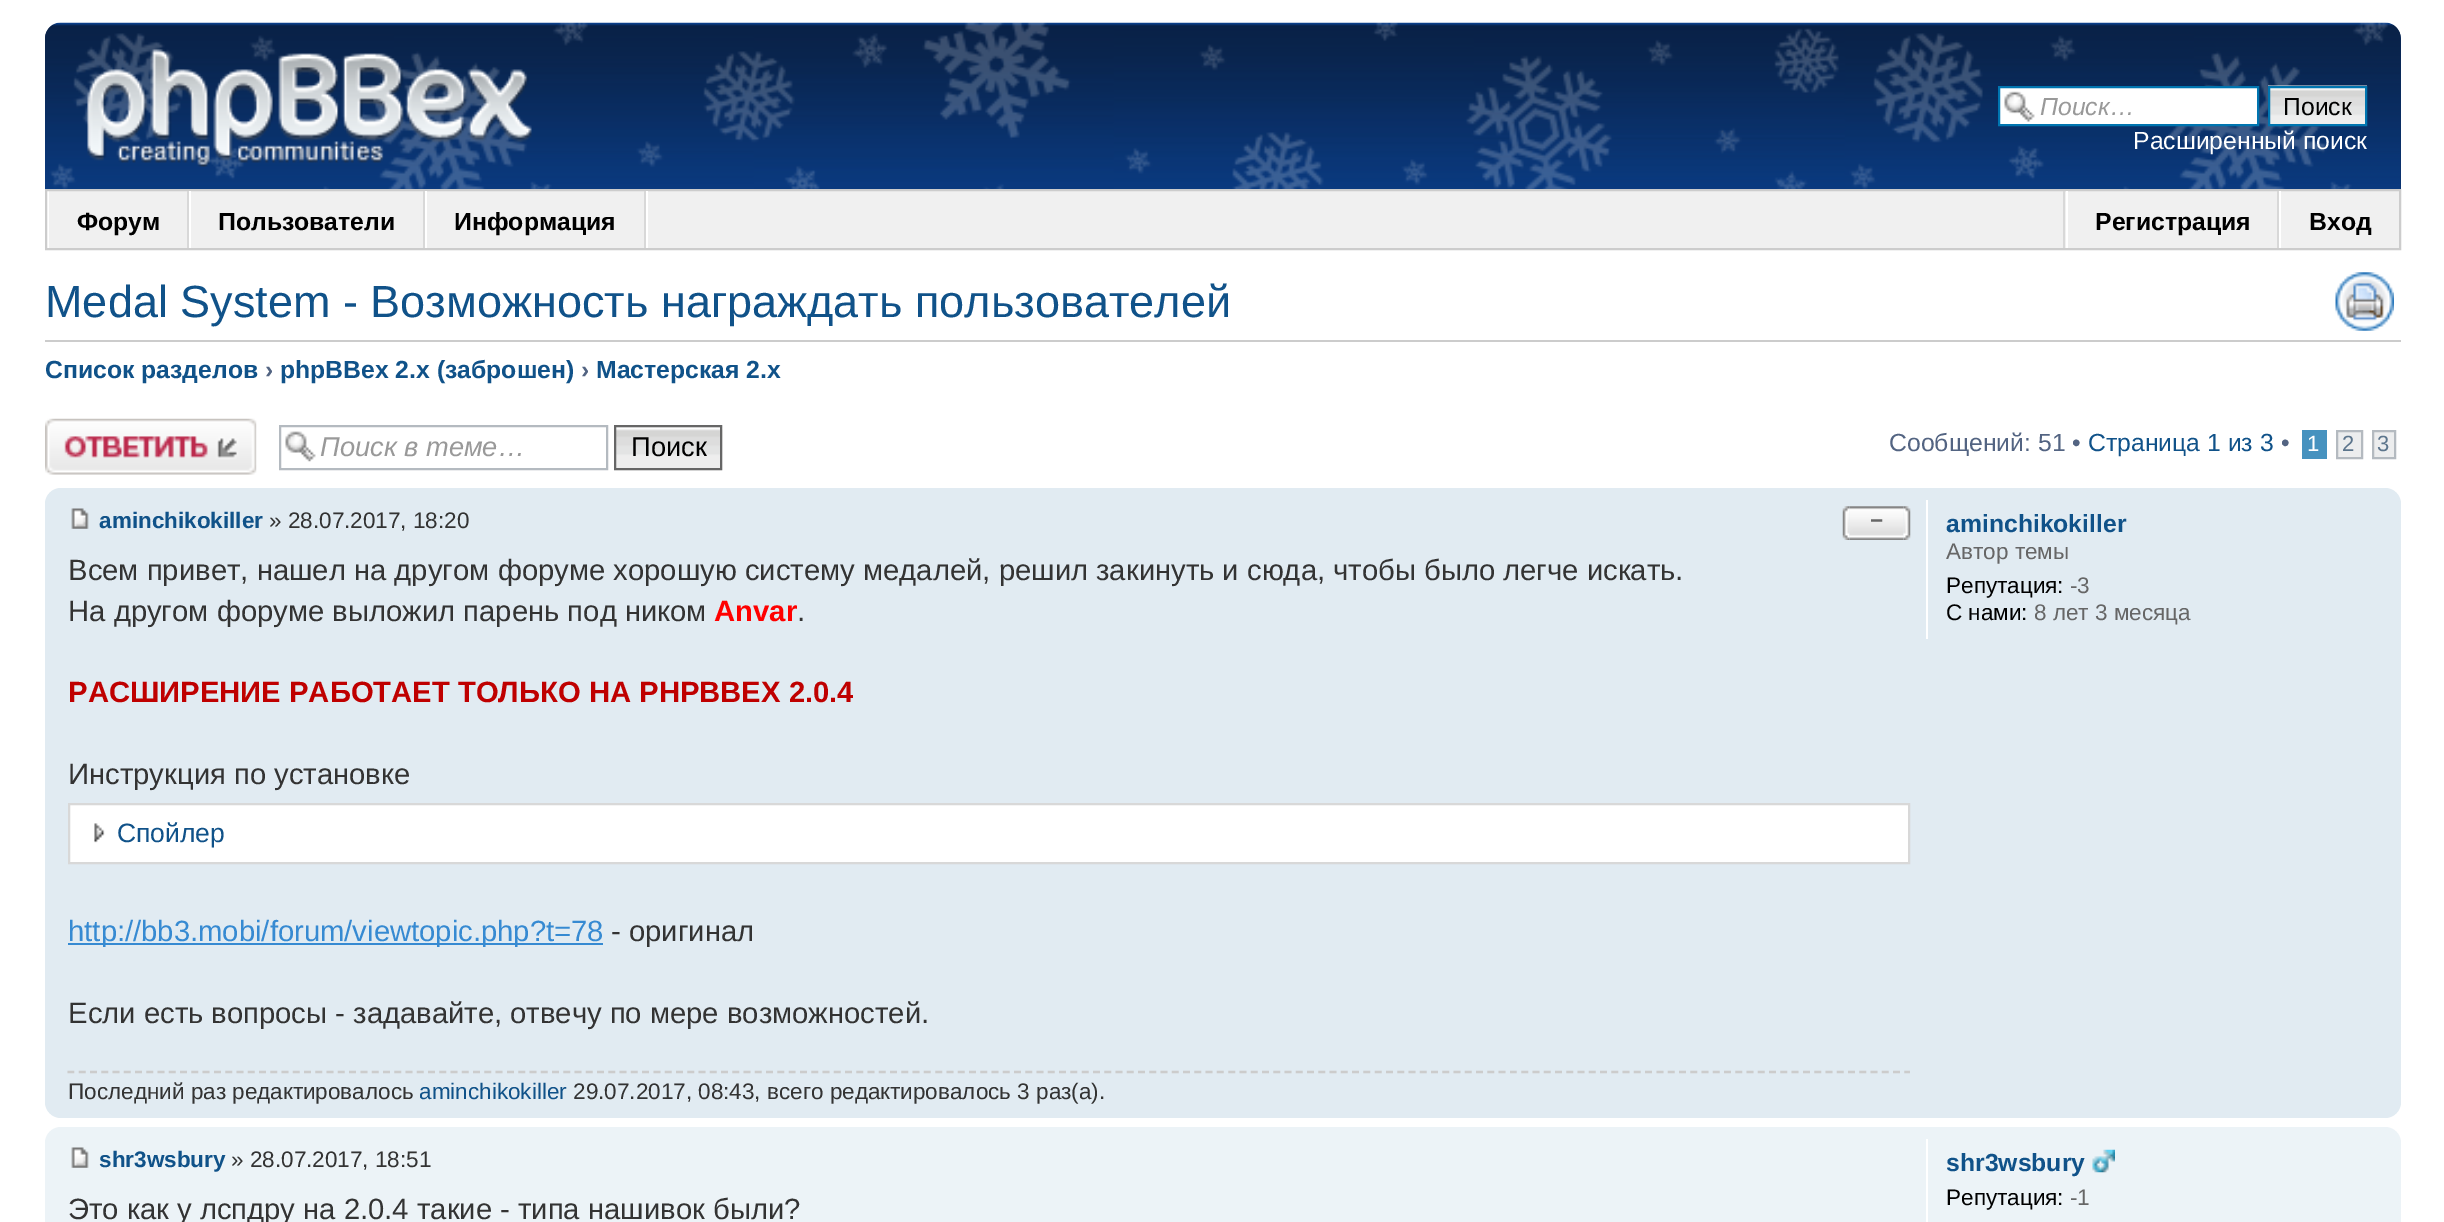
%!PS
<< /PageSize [2444 1222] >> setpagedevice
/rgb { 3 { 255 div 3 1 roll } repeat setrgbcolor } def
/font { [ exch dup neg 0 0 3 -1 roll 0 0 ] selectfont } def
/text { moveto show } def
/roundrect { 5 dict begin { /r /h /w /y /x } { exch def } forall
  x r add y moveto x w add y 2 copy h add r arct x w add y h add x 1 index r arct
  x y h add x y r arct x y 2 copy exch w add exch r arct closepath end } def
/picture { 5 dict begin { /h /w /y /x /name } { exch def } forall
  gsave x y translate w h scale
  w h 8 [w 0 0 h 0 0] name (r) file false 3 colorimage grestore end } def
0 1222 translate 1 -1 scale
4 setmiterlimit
255 255 255 rgb
0 0 2444 1222 rectfill
10 44 96 rgb
61 23 moveto 2324 0 rlineto 9 0 16 7 16 16 rcurveto 0 150 rlineto -2356 0 rlineto 0 -150 rlineto 0 -9 7 -16 16 -16 rcurveto closepath fill
(img_01.rgb) 45 22 2356 167 picture
(img_02.rgb) 87 49 445 118 picture
255 255 255 rgb
2000 88 257 36 rectfill
(img_03.rgb) 2004 91 31 31 picture
0 117 176 rgb
2 setlinewidth
1999 87 259 38 rectstroke
(img_04.rgb) 2268 85 99 39 picture
2269 87 97 38 rectstroke
240 240 240 rgb
49 191 2350 57 rectfill
204 204 204 rgb
46 190 2354 59 rectstroke
216 216 216 rgb
187 191 2 57 rectfill
423 191 2 57 rectfill
255 255 255 rgb
189 191 2 57 rectfill
216 216 216 rgb
644 191 2 57 rectfill
255 255 255 rgb
425 191 2 57 rectfill
646 191 2 57 rectfill
216 216 216 rgb
2063 191 2 57 rectfill
2277 191 2 57 rectfill
255 255 255 rgb
2066 191 2 57 rectfill
2279 191 2 57 rectfill
(img_05.rgb) 2335 272 59 59 picture
204 204 204 rgb
45 340 2356 2 rectfill
(img_06.rgb) 45 418 212 57 picture
(img_07.rgb) 285 431 31 31 picture
180 186 192 rgb
280 426 327 43 rectstroke
(img_08.rgb) 614 425 109 46 picture
102 102 102 rgb
615 426 106 43 rectstroke
70 146 191 rgb
2302 430 25 29 rectfill
236 237 238 rgb
2337 431 moveto 25 0 rlineto 0 27 rlineto -25 0 rlineto closepath gsave fill grestore
180 186 192 rgb
stroke
236 237 238 rgb
2373 431 moveto 22 0 rlineto 0 27 rlineto -22 0 rlineto closepath gsave fill grestore
180 186 192 rgb
stroke
225 235 242 rgb
45 488 2356 630 16 roundrect fill
(img_09.rgb) 71 508 18 21 picture
(img_10.rgb) 1842 506 8 34 picture
(img_11.rgb) 1849 506 55 34 picture
(img_12.rgb) 1903 506 8 34 picture
255 255 255 rgb
69 804 moveto 1840 0 rlineto 0 59 rlineto -1840 0 rlineto closepath gsave fill grestore
216 216 216 rgb
stroke
(img_13.rgb) 94 823 11 20 picture
54 138 210 rgb
68 943 535 2 rectfill
204 204 204 rgb
2.2 setlinewidth
[6.75 4.52] 0 setdash
67.5 1072 moveto 1842.5 0 rlineto stroke
255 255 255 rgb
1926 500 2 139 rectfill
236 243 247 rgb
45 1127 2356 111 16 roundrect fill
(img_14.rgb) 71 1147 18 21 picture
255 255 255 rgb
1926 1139 2 83 rectfill
(img_15.rgb) 2092 1149 23 24 picture
/LiberationSans-Italic 24.75 font
153 153 153 rgb
(Поиск…) 2040 115 text
/LiberationSans-Regular 24.75 font
0 0 0 rgb
(Поиск) 2283 115 text
255 255 255 rgb
(Расширенный поиск) 2133 149 text
/LiberationSans-Bold 24.75 font
0 0 0 rgb
(Форум) 77 230 text
(Пользователи) 218 230 text
(Информация) 454 230 text
(Регистрация) 2095 230 text
(Вход) 2309 230 text
/LiberationSans-Regular 45 font
16 82 137 rgb
(Medal System - Возможность награждать пользователей) 45 317 text
/LiberationSans-Bold 24.75 font
(Список разделов) 45 378 text
83 100 130 rgb
(›) 265 378 text
16 82 137 rgb
(phpBBex 2.x \(заброшен\)) 280 378 text
83 100 130 rgb
(›) 581 378 text
16 82 137 rgb
(Мастерская 2.x) 596 378 text
/LiberationSans-Italic 27.25 font
153 153 153 rgb
(Поиск в теме…) 320 456 text
/LiberationSans-Regular 27.25 font
0 0 0 rgb
(Поиск) 631 456 text
/LiberationSans-Regular 24.75 font
83 100 130 rgb
(Сообщений: 51 •) 1889 451 text
16 82 137 rgb
(Страница 1 из 3) 2088 451 text
83 100 130 rgb
(•) 2281 451 text
/LiberationSans-Regular 22 font
255 255 255 rgb
(1) 2307 451 text
92 117 140 rgb
(2) 2342 451 text
(3) 2377 451 text
/LiberationSans-Bold 22.5 font
16 82 137 rgb
(aminchikokiller) 99 528 text
/LiberationSans-Regular 22.5 font
51 51 51 rgb
(» 28.07.2017, 18:20) 269 528 text
/LiberationSans-Bold 22.5 font
102 102 102 rgb
(−) 1870 528 text
/LiberationSans-Regular 29.25 font
51 51 51 rgb
(Всем привет, нашел на другом форуме хорошую систему медалей, решил закинуть и сюда, чтобы было легче искать.) 68 580 text
(На другом форуме выложил парень под ником) 68 621 text
/LiberationSans-Bold 29.25 font
255 0 0 rgb
(Anvar) 714 621 text
/LiberationSans-Regular 29.25 font
51 51 51 rgb
(.) 797 621 text
/LiberationSans-Bold 29.25 font
191 0 0 rgb
(РАСШИРЕНИЕ РАБОТАЕТ ТОЛЬКО НА PHPBBEX 2.0.4) 68 702 text
/LiberationSans-Regular 29.25 font
51 51 51 rgb
(Инструкция по установке) 68 784 text
/LiberationSans-Regular 26.5 font
16 82 137 rgb
(Спойлер) 117 842 text
/LiberationSans-Regular 29.25 font
54 138 210 rgb
(http://bb3.mobi/forum/viewtopic.php?t=78) 68 941 text
51 51 51 rgb
(- оригинал) 611 941 text
(Если есть вопросы - задавайте, отвечу по мере возможностей.) 68 1023 text
/LiberationSans-Regular 22.5 font
(Последний раз редактировалось) 68 1099 text
16 82 137 rgb
(aminchikokiller) 419 1099 text
51 51 51 rgb
(29.07.2017, 08:43, всего редактировалось 3 раз\(а\).) 573 1099 text
/LiberationSans-Bold 24.75 font
16 82 137 rgb
(aminchikokiller) 1946 532 text
/LiberationSans-Regular 22.5 font
102 102 102 rgb
(Автор темы) 1946 559 text
0 0 0 rgb
(Репутация:) 1946 593 text
102 102 102 rgb
(-3) 2070 593 text
0 0 0 rgb
(С нами:) 1946 620 text
102 102 102 rgb
(8 лет 3 месяца) 2034 620 text
/LiberationSans-Bold 22.5 font
16 82 137 rgb
(shr3wsbury) 99 1167 text
/LiberationSans-Regular 22.5 font
51 51 51 rgb
(» 28.07.2017, 18:51) 231 1167 text
/LiberationSans-Regular 29.25 font
(Это как у лспдру на 2.0.4 такие - типа нашивок были?) 68 1219 text
/LiberationSans-Bold 24.75 font
16 82 137 rgb
(shr3wsbury) 1946 1171 text
/LiberationSans-Regular 22.5 font
0 0 0 rgb
(Репутация:) 1946 1205 text
102 102 102 rgb
(-1) 2070 1205 text
showpage
